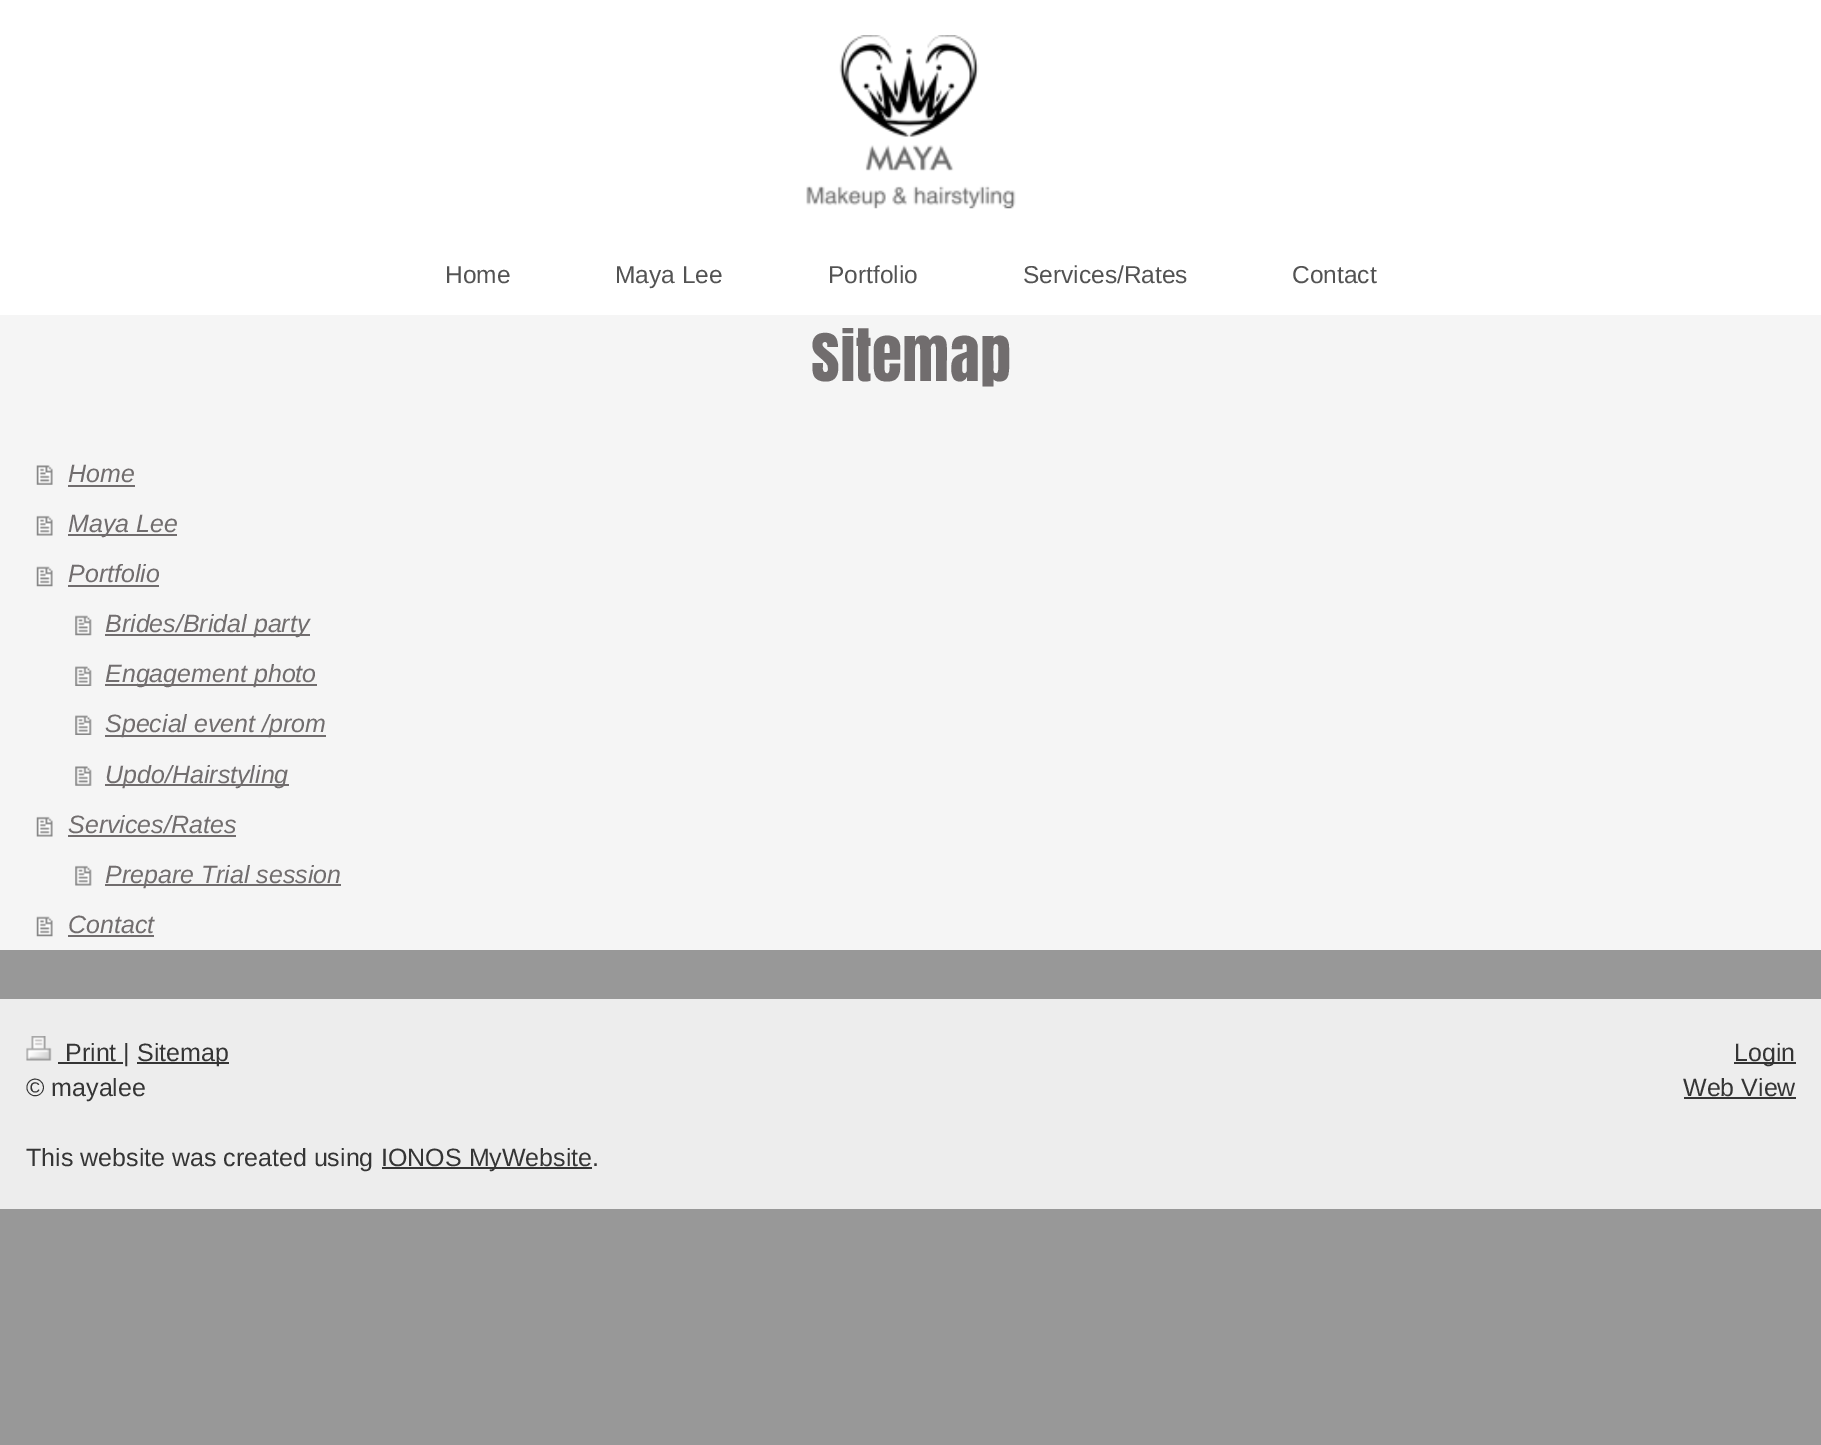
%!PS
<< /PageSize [1821 1445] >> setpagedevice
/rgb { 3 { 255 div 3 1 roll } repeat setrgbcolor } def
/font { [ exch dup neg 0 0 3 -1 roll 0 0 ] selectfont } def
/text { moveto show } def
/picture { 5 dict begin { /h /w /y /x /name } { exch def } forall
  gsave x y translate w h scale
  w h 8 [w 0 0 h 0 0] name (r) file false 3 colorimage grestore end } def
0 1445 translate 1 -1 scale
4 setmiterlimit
152 152 152 rgb
0 0 1821 1445 rectfill
255 255 255 rgb
0 0 1821 315 rectfill
(img_01.rgb) 806 35 210 174 picture
245 245 245 rgb
0 315 1821 635 rectfill
(img_02.rgb) 36 465 17 20 picture
113 109 110 rgb
68 485 67 2 rectfill
(img_03.rgb) 36 515 17 21 picture
68 534 109 2 rectfill
(img_04.rgb) 36 566 17 21 picture
68 585 91 2 rectfill
(img_05.rgb) 75 615 17 21 picture
105 634 205 2 rectfill
(img_06.rgb) 75 666 17 20 picture
105 684 212 2 rectfill
(img_06.rgb) 75 715 17 20 picture
105 735 221 2 rectfill
(img_07.rgb) 75 766 17 20 picture
105 784 184 2 rectfill
(img_03.rgb) 36 816 17 21 picture
68 835 168 2 rectfill
(img_08.rgb) 75 865 17 21 picture
105 884 236 2 rectfill
(img_04.rgb) 36 916 17 21 picture
68 935 86 2 rectfill
237 237 237 rgb
0 999 1821 210 rectfill
(img_09.rgb) 26 1036 26 25 picture
53 53 53 rgb
58 1062 65 2 rectfill
137 1062 92 2 rectfill
382 1167 210 2 rectfill
1734 1062 62 2 rectfill
1684 1097 112 2 rectfill
/LiberationSans-Regular 24.5 font
83 83 83 rgb
(Home) 445 283 text
(Maya Lee) 615 283 text
(Portfolio) 828 283 text
(Services/Rates) 1023 283 text
(Contact) 1292 283 text
/Anton-Regular 61.5 font
113 109 110 rgb
(Sitemap) 811 381 text
/LiberationSans-Italic 25 font
(Home) 68 482 text
(Maya Lee) 68 532 text
(Portfolio) 68 582 text
(Brides/Bridal party) 105 632 text
(Engagement photo) 105 682 text
(Special event /prom) 105 732 text
(Updo/Hairstyling) 105 783 text
(Services/Rates) 68 833 text
(Prepare Trial session) 105 883 text
(Contact) 68 933 text
/LiberationSans-Regular 25 font
53 53 53 rgb
(Print |) 65 1061 text
(Sitemap) 137 1061 text
(© mayalee) 26 1096 text
(This website was created using) 26 1166 text
(IONOS MyWebsite.) 381 1166 text
(Login) 1734 1061 text
(Web View) 1683 1096 text
showpage
